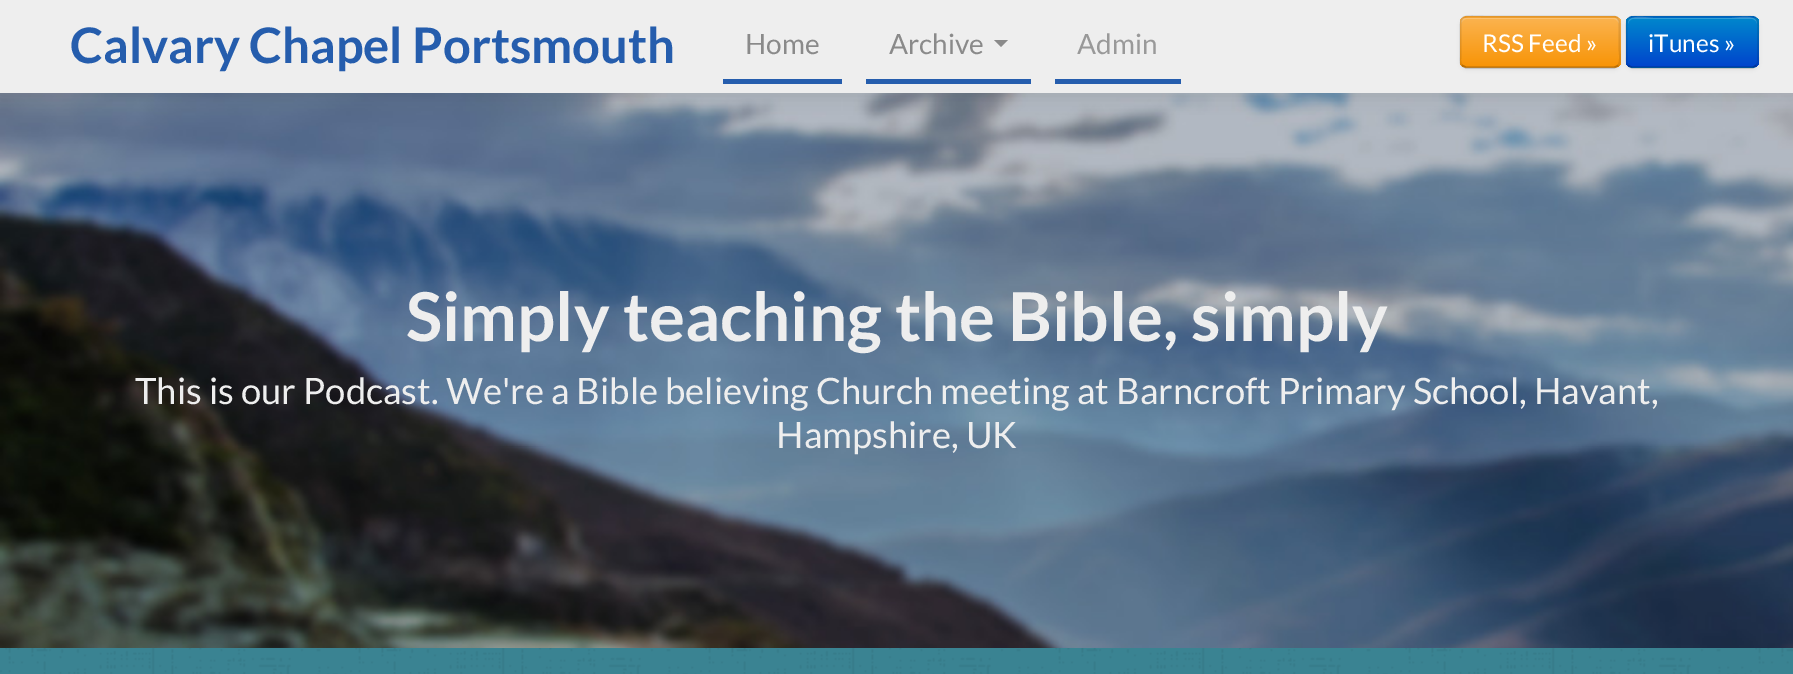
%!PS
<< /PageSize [1793 674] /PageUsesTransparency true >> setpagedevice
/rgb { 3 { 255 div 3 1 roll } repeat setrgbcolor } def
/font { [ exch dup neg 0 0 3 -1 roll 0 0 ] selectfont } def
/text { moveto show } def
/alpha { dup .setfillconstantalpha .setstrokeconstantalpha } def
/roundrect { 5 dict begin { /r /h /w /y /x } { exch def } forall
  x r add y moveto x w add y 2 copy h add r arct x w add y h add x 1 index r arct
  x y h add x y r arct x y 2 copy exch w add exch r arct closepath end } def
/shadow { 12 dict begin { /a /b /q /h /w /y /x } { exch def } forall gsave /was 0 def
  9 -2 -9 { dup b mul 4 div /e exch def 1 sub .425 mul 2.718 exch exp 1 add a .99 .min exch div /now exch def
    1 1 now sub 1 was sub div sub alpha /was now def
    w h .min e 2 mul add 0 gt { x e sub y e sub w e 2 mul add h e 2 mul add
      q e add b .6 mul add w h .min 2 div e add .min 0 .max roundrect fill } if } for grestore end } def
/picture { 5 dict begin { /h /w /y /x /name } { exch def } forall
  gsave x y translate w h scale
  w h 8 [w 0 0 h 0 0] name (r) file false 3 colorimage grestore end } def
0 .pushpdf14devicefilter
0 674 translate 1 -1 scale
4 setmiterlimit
58 131 146 rgb
0 0 1793 674 rectfill
(img_01.rgb) 0 648 1793 26 picture
(img_02.rgb) 0 93 1793 555 picture
0 0 0 rgb
0 2 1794 93 0 9 0.1 shadow
238 238 238 rgb
0 0 1793 93 rectfill
37 93 173 rgb
723 79 119 5 rectfill
866 79 165 5 rectfill
138 138 138 rgb
994 40 moveto 14 0 rlineto -7 7 rlineto closepath fill
37 93 173 rgb
1055 79 126 5 rectfill
0 0 0 rgb
1460 18 161 52 7 2 0.05 shadow
250 167 50 rgb
1460 16 161 52 7 roundrect fill
gsave
1460 16 161 52 7 roundrect clip newpath
gsave 1460 18 moveto 161 0 rlineto 0 49 rlineto -161 0 rlineto closepath clip newpath
<< /ShadingType 2 /ColorSpace /DeviceRGB /Coords [1540 17 1540 67] /Extend [true true] /Function << /FunctionType 2 /Domain [0 1] /C0 [0.984 0.706 0.314] /C1 [0.973 0.58 0.024] /N 1 >> >> shfill grestore
grestore
0.2 alpha
255 255 255 rgb
1466 19 moveto 148 0 rlineto 2 0 5 3 5 5 rcurveto 0 -1 rlineto 0 -3 -2 -5 -5 -5 rcurveto -148 0 rlineto -3 0 -5 2 -5 5 rcurveto 0 1 rlineto 0 -2 3 -5 5 -5 rcurveto closepath fill
0.25 alpha
0 0 0 rgb
1.8 setlinewidth
1618 65.5 moveto -1 1 -2.5 1.5 -4 2 rcurveto -148 0 rlineto -4 -2 rlineto stroke
0.1 alpha
1462 65.5 moveto -2.5 -2.5 -1.5 -7.5 -1.5 -10.5 rcurveto 0 -13 rlineto 0 -31 -3.5 -25.5 30.5 -25.5 rcurveto 122.5 0 rlineto 7 0 6 8 6 12.5 rcurveto 0 19.5 rlineto 0 4 2 13.5 -1.5 17 rcurveto stroke
1 alpha
1626 18 133 52 7 2 0.05 shadow
0 109 204 rgb
1626 16 133 52 7 roundrect fill
gsave
1626 16 133 52 7 roundrect clip newpath
gsave 1626 18 moveto 133 0 rlineto 0 49 rlineto -133 0 rlineto closepath clip newpath
<< /ShadingType 2 /ColorSpace /DeviceRGB /Coords [1692 17 1692 67] /Extend [true true] /Function << /FunctionType 2 /Domain [0 1] /C0 [0 0.533 0.8] /C1 [0 0.267 0.8] /N 1 >> >> shfill grestore
grestore
0.2 alpha
255 255 255 rgb
1633 19 moveto 119 0 rlineto 3 0 5 3 5 5 rcurveto 0 -11 -21 -6 -25 -6 rcurveto -79 0 rlineto -4 0 -25 -5 -25 6 rcurveto 0 -2 2 -5 5 -5 rcurveto closepath fill
0.25 alpha
0 0 0 rgb
1756 65.5 moveto -1 1 -2.5 2 -4 2 rcurveto -119 0 rlineto -2 0 -3.5 -1 -4.5 -2 rcurveto stroke
0.1 alpha
1628.5 65.5 moveto -3 -2.5 -2 -7.5 -2 -10.5 rcurveto 0 -13 rlineto 0 -29 -4 -25.5 26 -25.5 rcurveto 79.5 0 rlineto 30 0 26 -3.5 26 25.5 rcurveto 0 13 rlineto 0 3 1 8 -2 10.5 rcurveto stroke
/Lato-Bold 49 font
1 alpha
37 93 173 rgb
(Calvary Chapel Portsmouth) 70 63 text
/Lato-Regular 28 font
138 138 138 rgb
(Home) 745 54 text
(Archive) 889 54 text
153 153 153 rgb
(Admin) 1077 54 text
/Lato-Regular 24.5 font
255 255 255 rgb
(RSS Feed ») 1482 52 text
(iTunes ») 1648 52 text
/Lato-Bold 67.4 font
238 238 238 rgb
(Simply teaching the Bible, simply) 406 341 text
/Lato-Regular 36.4 font
(This is our Podcast. We're a Bible believing Church meeting at Barncroft Primary School, Havant,) 135 404 text
(Hampshire, UK) 776 448 text
.poppdf14devicefilter showpage
